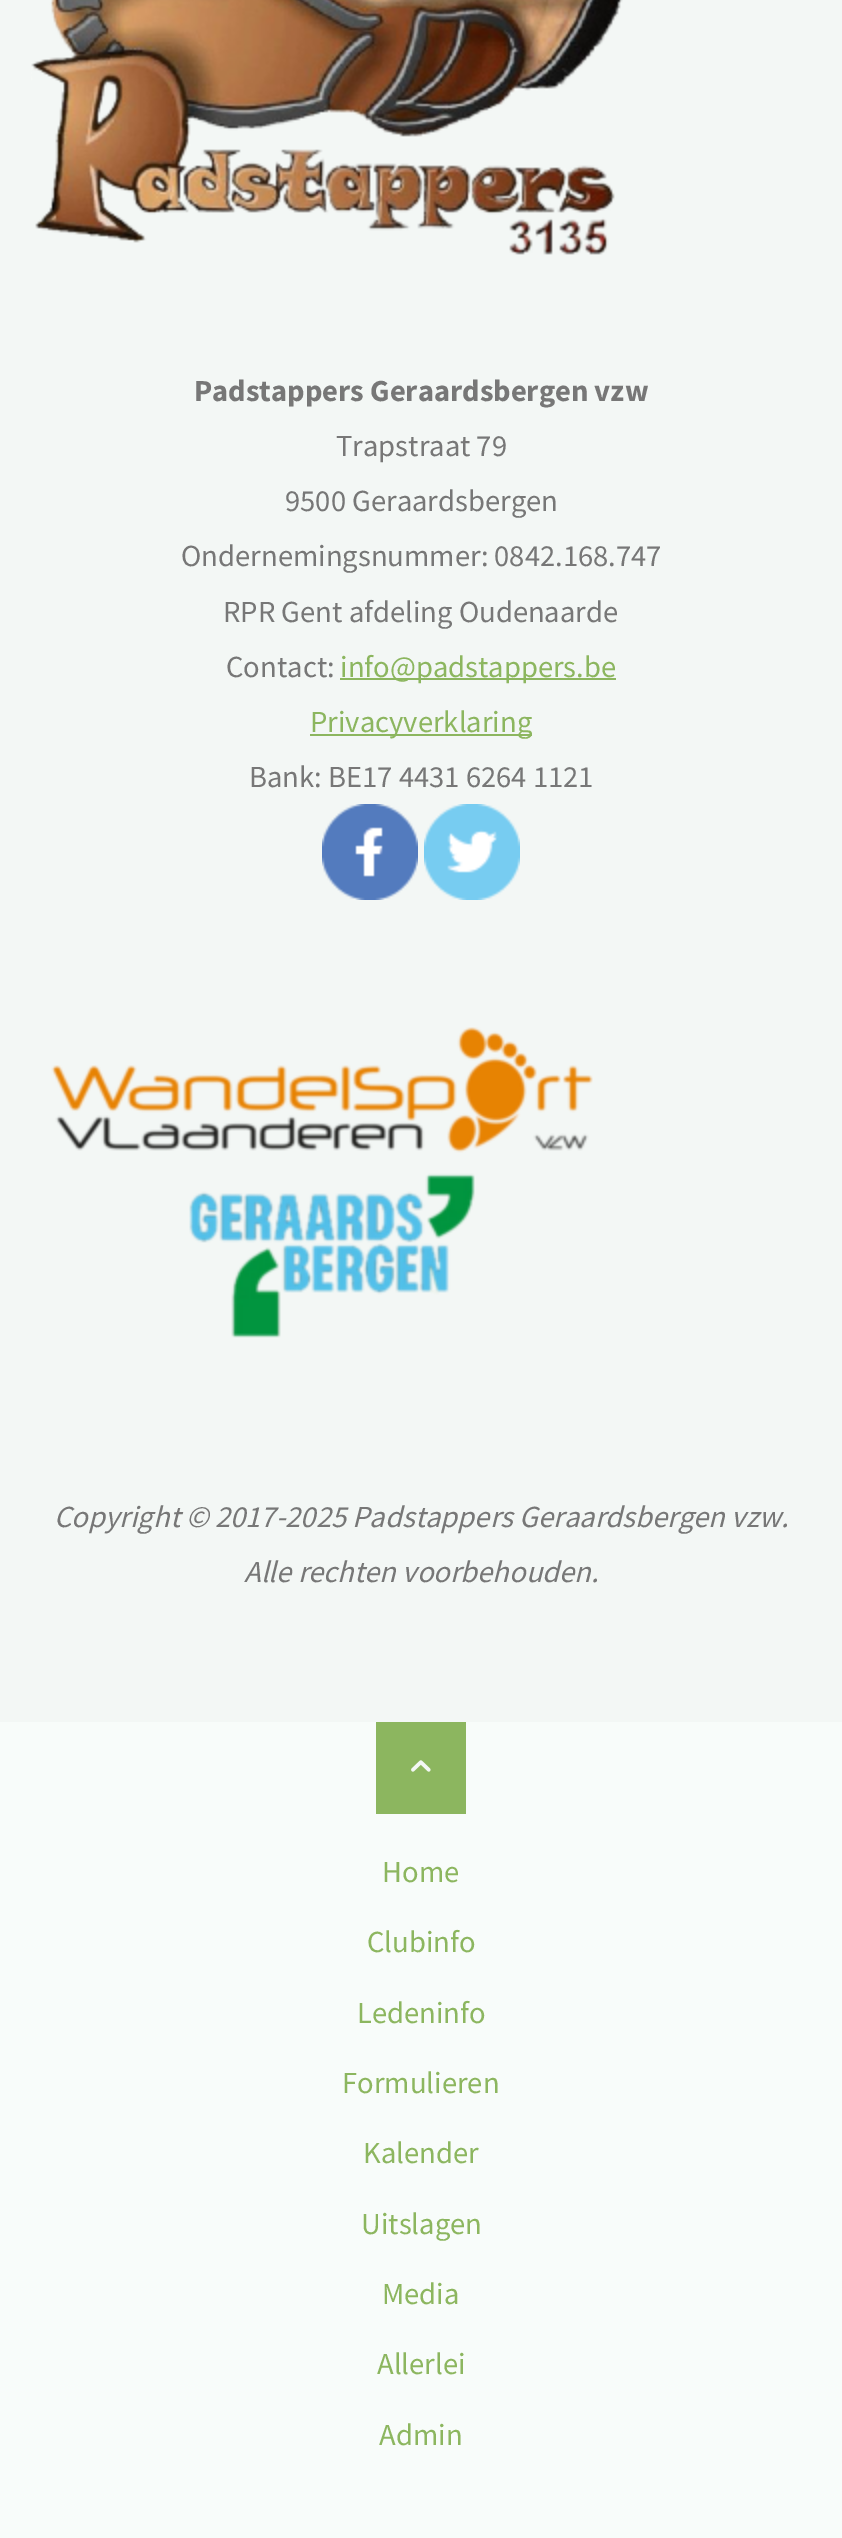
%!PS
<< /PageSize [842 2538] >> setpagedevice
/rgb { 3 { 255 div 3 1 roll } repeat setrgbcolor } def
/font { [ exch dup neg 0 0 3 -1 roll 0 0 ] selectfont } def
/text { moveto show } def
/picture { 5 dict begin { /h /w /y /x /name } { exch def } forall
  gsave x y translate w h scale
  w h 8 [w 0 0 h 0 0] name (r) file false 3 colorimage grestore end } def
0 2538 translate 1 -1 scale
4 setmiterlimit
243 247 245 rgb
0 0 842 2538 rectfill
(img_01.rgb) 31 0 592 255 picture
140 182 95 rgb
340 678 276 2 rectfill
310 734 222 2 rectfill
(img_02.rgb) 322 804 96 96 picture
(img_03.rgb) 424 804 96 96 picture
(img_04.rgb) 51 1027 542 311 picture
248 252 250 rgb
0 1722 842 816 rectfill
140 182 95 rgb
376 1722 90 92 rectfill
(img_05.rgb) 411 1760 20 12 picture
/SourceSansPro-Bold 30.6 font
119 119 119 rgb
(Padstappers Geraardsbergen vzw) 194 401 text
/SourceSansPro-Regular 30.6 font
(Trapstraat 79) 336 456 text
(9500 Geraardsbergen) 285 511 text
(Ondernemingsnummer: 0842.168.747) 181 566 text
(RPR Gent afdeling Oudenaarde) 223 622 text
(Contact:) 226 677 text
140 182 95 rgb
(info@padstappers.be) 340 677 text
(Privacyverklaring) 310 732 text
119 119 119 rgb
(Bank: BE17 4431 6264 1121) 249 787 text
/SourceSansPro-Italic 30.6 font
(Copyright © 2017-2025 Padstappers Geraardsbergen vzw.) 54 1527 text
(Alle rechten voorbehouden.) 244 1582 text
/SourceSansPro-Regular 30.6 font
140 182 95 rgb
(Home) 382 1882 text
(Clubinfo) 367 1952 text
(Ledeninfo) 357 2023 text
(Formulieren) 342 2093 text
(Kalender) 363 2163 text
(Uitslagen) 361 2234 text
(Media) 382 2304 text
(Allerlei) 377 2374 text
(Admin) 379 2445 text
showpage
